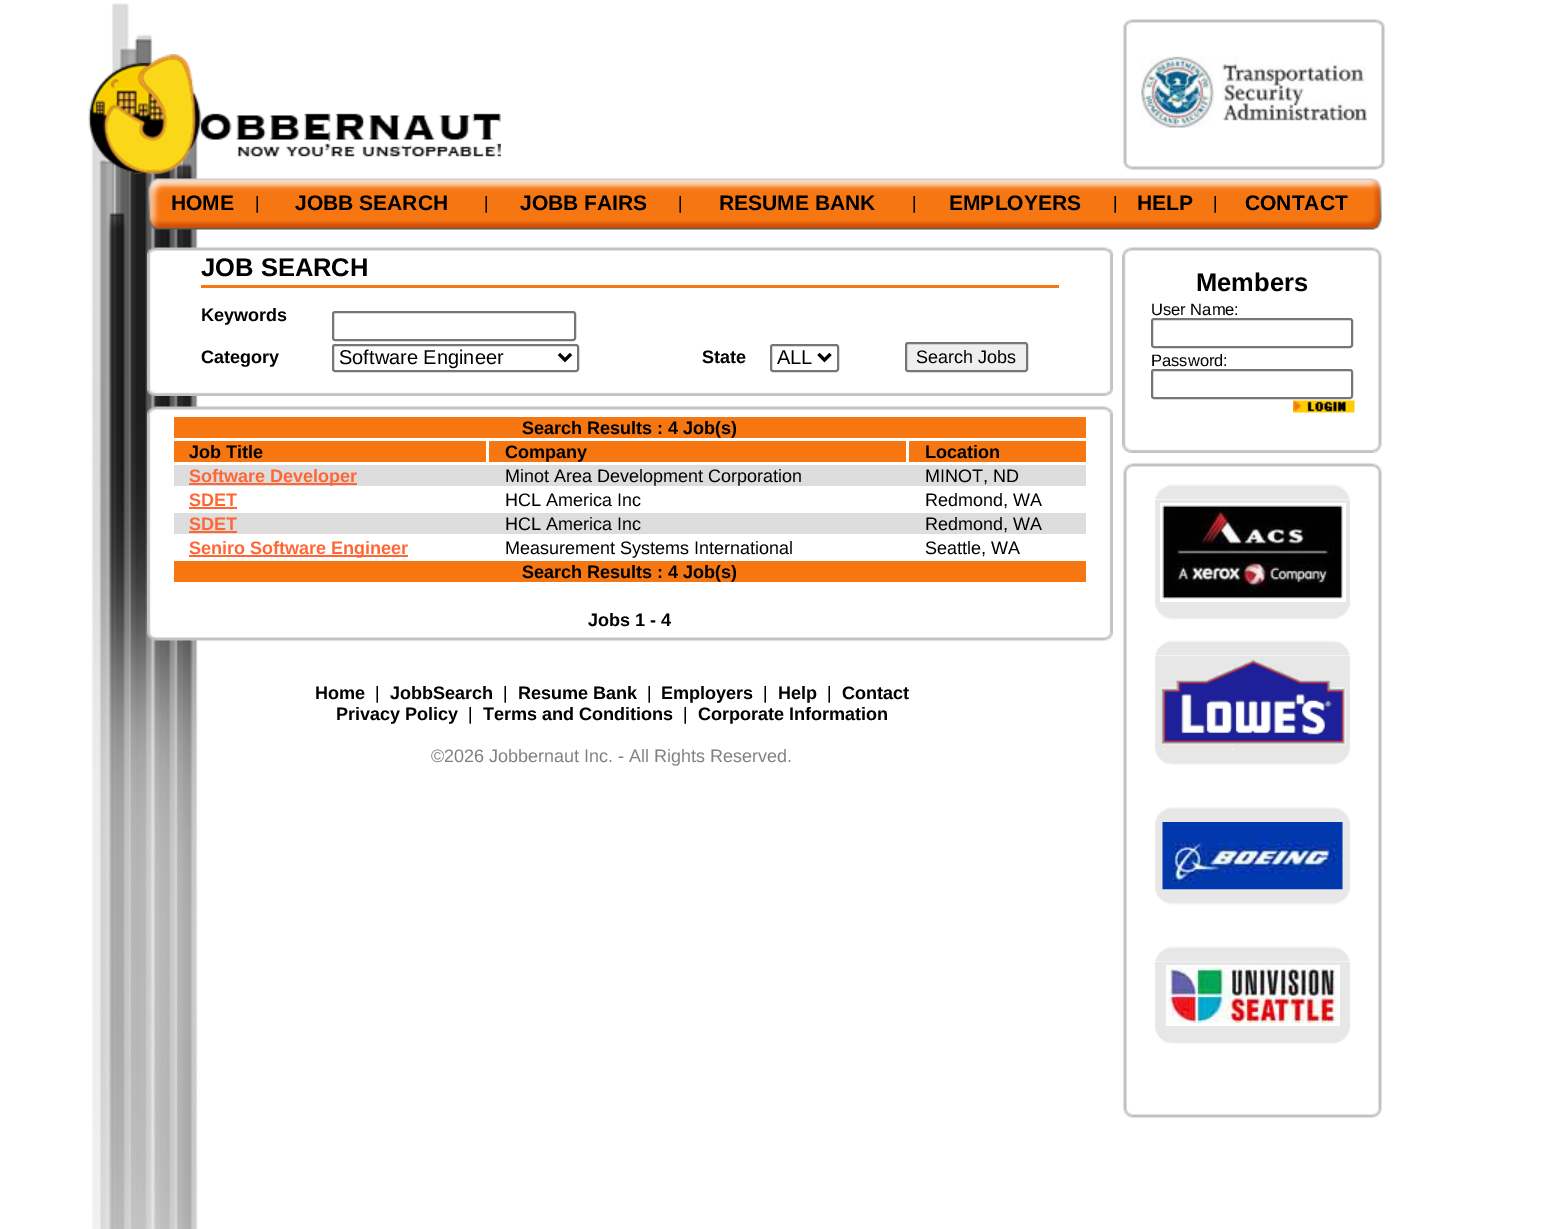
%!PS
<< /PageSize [1541 1229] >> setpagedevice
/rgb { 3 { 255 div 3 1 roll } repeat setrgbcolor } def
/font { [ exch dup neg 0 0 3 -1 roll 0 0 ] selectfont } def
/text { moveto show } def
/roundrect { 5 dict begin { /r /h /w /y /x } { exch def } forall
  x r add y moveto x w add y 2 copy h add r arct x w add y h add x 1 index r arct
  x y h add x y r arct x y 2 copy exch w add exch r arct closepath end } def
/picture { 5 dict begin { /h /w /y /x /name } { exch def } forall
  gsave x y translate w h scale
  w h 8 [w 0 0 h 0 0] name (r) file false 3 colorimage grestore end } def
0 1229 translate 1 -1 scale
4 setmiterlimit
255 255 255 rgb
0 0 1541 1229 rectfill
(img_01.rgb) 91 3 107 1226 picture
(img_02.rgb) 1123 19 262 151 picture
(img_03.rgb) 88 54 413 120 picture
(img_04.rgb) 1141 56 226 72 picture
(img_05.rgb) 148 178 1234 52 picture
(img_06.rgb) 147 247 966 149 picture
(img_07.rgb) 1122 247 260 206 picture
246 118 17 rgb
201 285 858 3 rectfill
118 118 118 rgb
2 setlinewidth
333 312 242 28 2 roundrect stroke
333 345 245 26 2 roundrect stroke
0 0 0 rgb
3 setlinewidth
559 354 moveto 6 6 rlineto 6 -6 rlineto stroke
118 118 118 rgb
2 setlinewidth
771 345 67 26 2 roundrect stroke
0 0 0 rgb
3 setlinewidth
818.5 354 moveto 6 6 rlineto 6 -6 rlineto stroke
239 239 239 rgb
906 343 121 28 2 roundrect gsave fill grestore
118 118 118 rgb
2 setlinewidth
stroke
1152 319 200 28 2 roundrect stroke
1152 370 200 28 2 roundrect stroke
(img_08.rgb) 1293 400 62 13 picture
(img_09.rgb) 147 406 966 8 picture
(img_10.rgb) 147 414 966 219 picture
246 118 17 rgb
174 417 912 21 rectfill
174 441 312 21 rectfill
489 441 417 21 rectfill
909 441 177 21 rectfill
221 221 221 rgb
174 465 912 21 rectfill
255 102 51 rgb
189 483 168 2 rectfill
189 507 48 2 rectfill
221 221 221 rgb
174 513 912 21 rectfill
255 102 51 rgb
189 531 48 2 rectfill
189 555 219 2 rectfill
246 118 17 rgb
174 561 912 21 rectfill
(img_11.rgb) 147 633 966 8 picture
(img_12.rgb) 1123 463 259 655 picture
(img_13.rgb) 1155 484 195 16 picture
231 231 231 rgb
1155 500 195 105 rectfill
255 255 255 rgb
1160 503 186 99 rectfill
(img_14.rgb) 1162 505 181 94 picture
(img_15.rgb) 1155 604 195 16 picture
(img_13.rgb) 1155 640 195 16 picture
231 231 231 rgb
1155 656 195 94 rectfill
(img_16.rgb) 1161 659 185 91 picture
(img_17.rgb) 1155 750 195 15 picture
(img_18.rgb) 1155 807 195 15 picture
1155 822 195 68 rectfill
(img_19.rgb) 1162 822 181 68 picture
(img_20.rgb) 1155 889 195 16 picture
(img_13.rgb) 1155 946 195 16 picture
1155 962 195 67 rectfill
255 255 255 rgb
1166 965 174 61 rectfill
(img_21.rgb) 1168 967 169 56 picture
(img_17.rgb) 1155 1029 195 15 picture
/LiberationSans-Bold 21 font
0 0 0 rgb
(HOME) 171 210 text
/LiberationSans-Regular 18 font
(|) 255 209 text
/LiberationSans-Bold 21 font
(JOBB SEARCH) 295 210 text
/LiberationSans-Regular 18 font
(|) 484 209 text
/LiberationSans-Bold 21 font
(JOBB FAIRS) 520 210 text
/LiberationSans-Regular 18 font
(|) 678 209 text
/LiberationSans-Bold 21 font
(RESUME BANK) 719 210 text
/LiberationSans-Regular 18 font
(|) 912 209 text
/LiberationSans-Bold 21 font
(EMPLOYERS) 949 210 text
/LiberationSans-Regular 18 font
(|) 1113 209 text
/LiberationSans-Bold 21 font
(HELP) 1137 210 text
/LiberationSans-Regular 18 font
(|) 1213 209 text
/LiberationSans-Bold 21 font
(CONTACT) 1245 210 text
/LiberationSans-Bold 25.5 font
(JOB SEARCH) 201 276 text
/LiberationSans-Bold 18 font
(Keywords) 201 321 text
(Category) 201 363 text
/LiberationSans-Regular 20 font
(Software Engineer) 339 364 text
/LiberationSans-Bold 18 font
(State) 702 363 text
/LiberationSans-Regular 20 font
(ALL) 777 364 text
/LiberationSans-Regular 18 font
(Search Jobs) 916 363 text
/LiberationSans-Bold 25.5 font
(Members) 1196 291 text
/LiberationSans-Regular 16.5 font
(User Name:) 1151 315 text
(Password:) 1151 366 text
/LiberationSans-Bold 18 font
(Search Results : 4 Job\(s\)) 522 434 text
(Job Title) 189 458 text
(Company) 505 458 text
(Location) 925 458 text
255 102 51 rgb
(Software Developer) 189 482 text
/LiberationSans-Regular 18 font
0 0 0 rgb
(Minot Area Development Corporation) 505 482 text
(MINOT, ND) 925 482 text
/LiberationSans-Bold 18 font
255 102 51 rgb
(SDET) 189 506 text
/LiberationSans-Regular 18 font
0 0 0 rgb
(HCL America Inc) 505 506 text
(Redmond, WA) 925 506 text
/LiberationSans-Bold 18 font
255 102 51 rgb
(SDET) 189 530 text
/LiberationSans-Regular 18 font
0 0 0 rgb
(HCL America Inc) 505 530 text
(Redmond, WA) 925 530 text
/LiberationSans-Bold 18 font
255 102 51 rgb
(Seniro Software Engineer) 189 554 text
/LiberationSans-Regular 18 font
0 0 0 rgb
(Measurement Systems International) 505 554 text
(Seattle, WA) 925 554 text
/LiberationSans-Bold 18 font
(Search Results : 4 Job\(s\)) 522 578 text
(Jobs 1 - 4) 588 626 text
(Home) 315 699 text
/LiberationSans-Regular 18 font
(|) 375 699 text
/LiberationSans-Bold 18 font
(JobbSearch) 390 699 text
/LiberationSans-Regular 18 font
(|) 503 699 text
/LiberationSans-Bold 18 font
(Resume Bank) 518 699 text
/LiberationSans-Regular 18 font
(|) 647 699 text
/LiberationSans-Bold 18 font
(Employers) 661 699 text
/LiberationSans-Regular 18 font
(|) 763 699 text
/LiberationSans-Bold 18 font
(Help) 778 699 text
/LiberationSans-Regular 18 font
(|) 827 699 text
/LiberationSans-Bold 18 font
(Contact) 842 699 text
(Privacy Policy) 336 720 text
/LiberationSans-Regular 18 font
(|) 468 720 text
/LiberationSans-Bold 18 font
(Terms and Conditions) 483 720 text
/LiberationSans-Regular 18 font
(|) 683 720 text
/LiberationSans-Bold 18 font
(Corporate Information) 698 720 text
/LiberationSans-Regular 18 font
128 128 128 rgb
(©2026 Jobbernaut Inc. - All Rights Reserved.) 431 762 text
showpage
